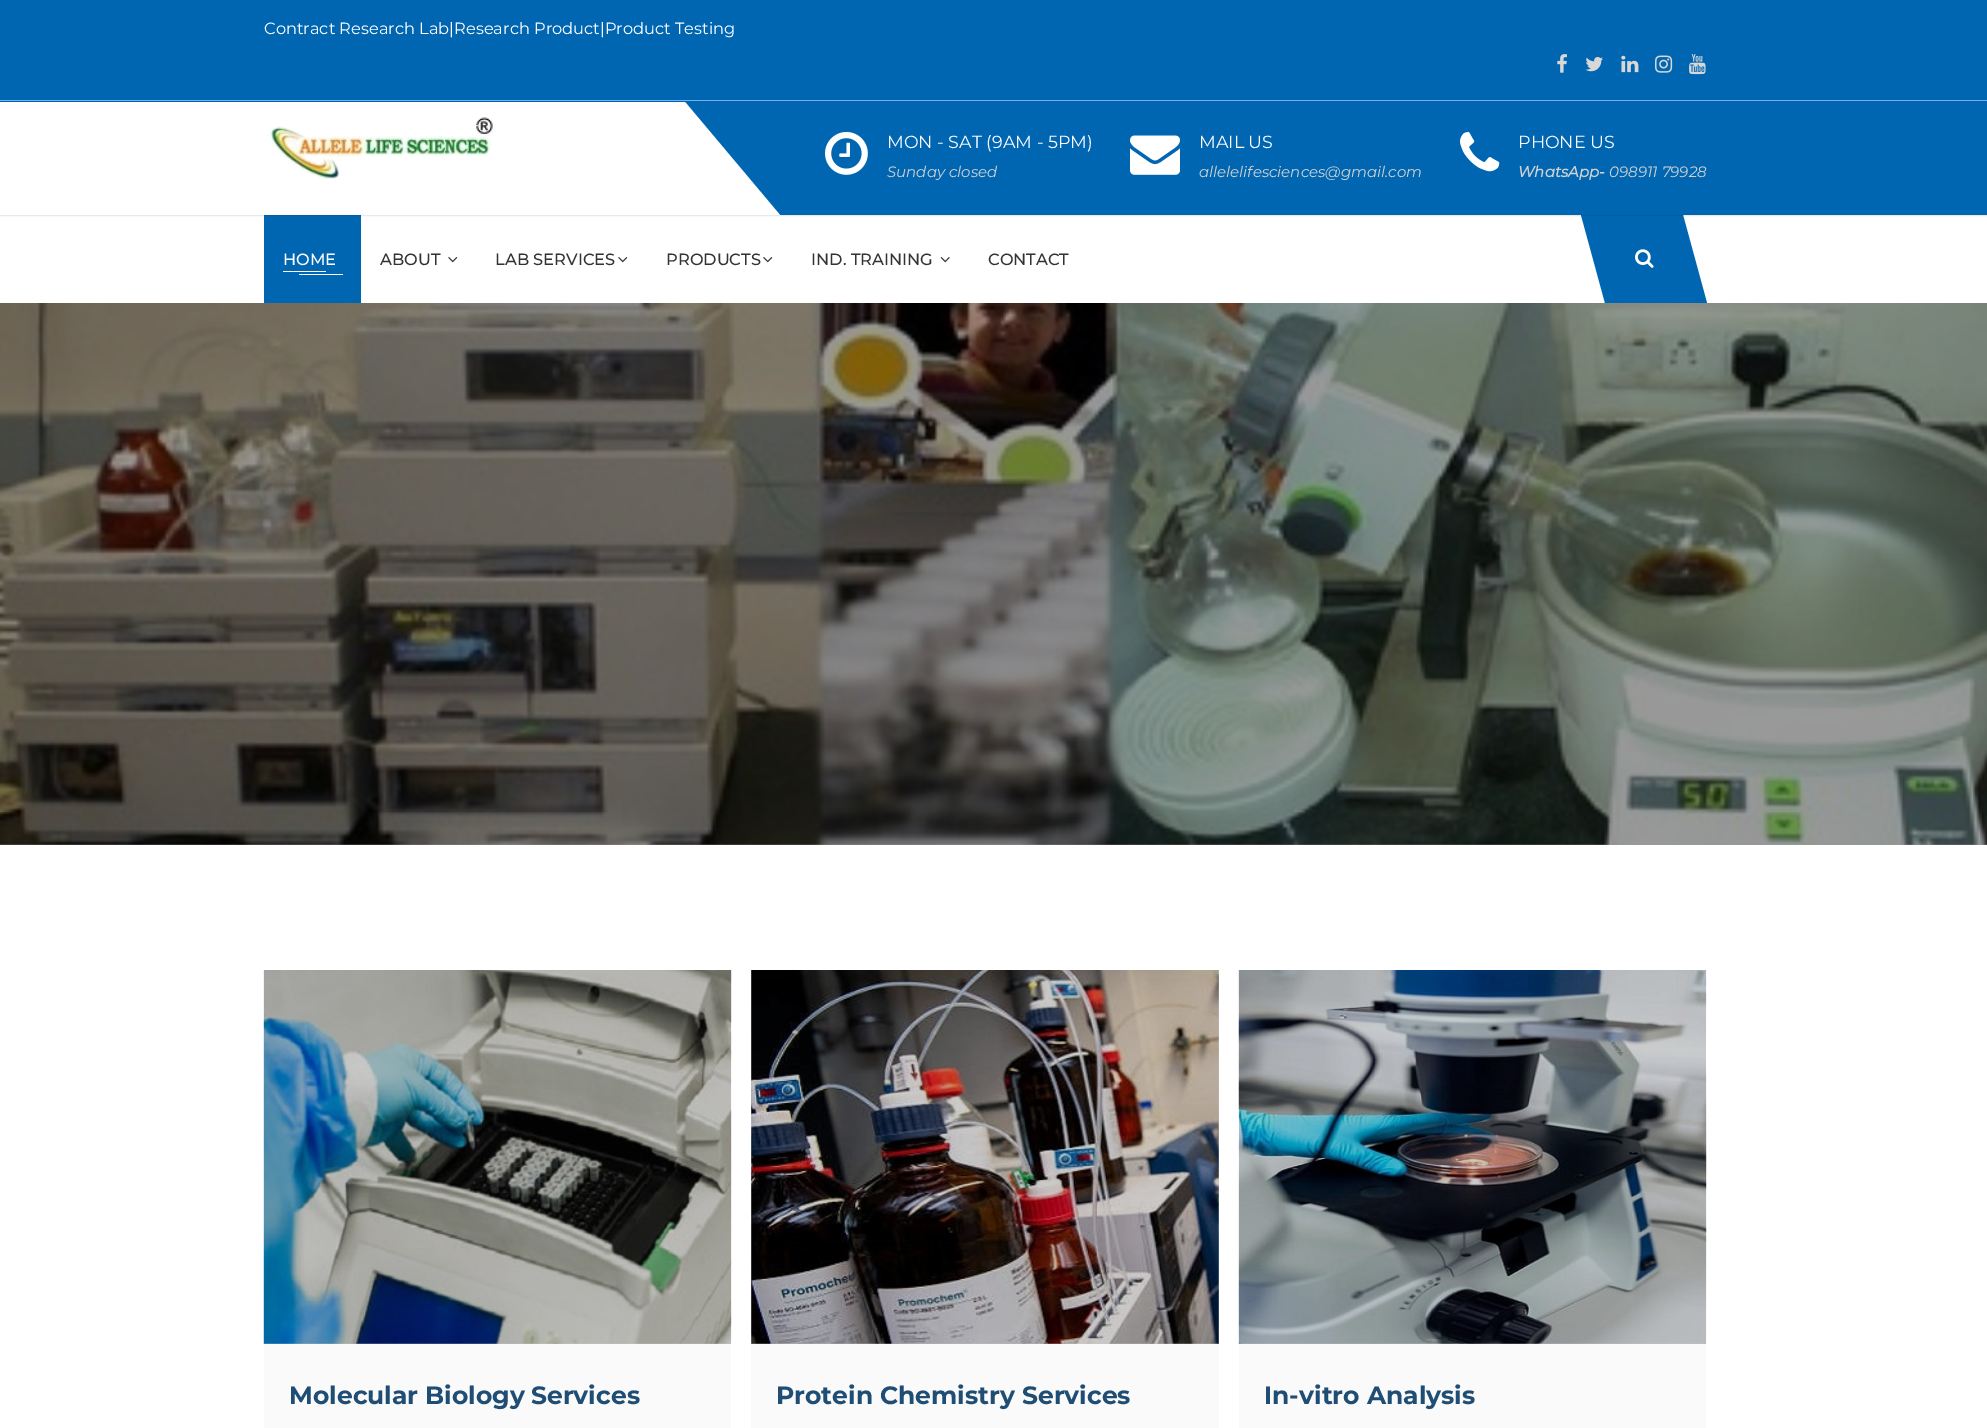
%!PS
<< /PageSize [1987 1428] /PageUsesTransparency true >> setpagedevice
/rgb { 3 { 255 div 3 1 roll } repeat setrgbcolor } def
/font { [ exch dup neg 0 0 3 -1 roll 0 0 ] selectfont } def
/text { moveto show } def
/alpha { dup .setfillconstantalpha .setstrokeconstantalpha } def
/roundrect { 5 dict begin { /r /h /w /y /x } { exch def } forall
  x r add y moveto x w add y 2 copy h add r arct x w add y h add x 1 index r arct
  x y h add x y r arct x y 2 copy exch w add exch r arct closepath end } def
/shadow { 12 dict begin { /a /b /q /h /w /y /x } { exch def } forall gsave /was 0 def
  9 -2 -9 { dup b mul 4 div /e exch def 1 sub .425 mul 2.718 exch exp 1 add a .99 .min exch div /now exch def
    1 1 now sub 1 was sub div sub alpha /was now def
    w h .min e 2 mul add 0 gt { x e sub y e sub w e 2 mul add h e 2 mul add
      q e add b .6 mul add w h .min 2 div e add .min 0 .max roundrect fill } if } for grestore end } def
/picture { 5 dict begin { /h /w /y /x /name } { exch def } forall
  gsave x y translate w h scale
  w h 8 [w 0 0 h 0 0] name (r) file false 3 colorimage grestore end } def
0 .pushpdf14devicefilter
0 1428 translate 1 -1 scale
4 setmiterlimit
255 255 255 rgb
0 0 1987 1428 rectfill
0 102 178 rgb
0 0 1987 100 rectfill
119 173 239 rgb
0 100 1987 1 rectfill
(img_01.rgb) 1557 54 10 19 picture
(img_02.rgb) 1585 57 18 15 picture
(img_03.rgb) 1621 55 18 18 picture
(img_04.rgb) 1655 55 18 18 picture
(img_05.rgb) 1689 54 17 21 picture
0 102 178 rgb
264 215 97 88 rectfill
1581 215 moveto 102 0 rlineto 24 88 rlineto -102 0 rlineto closepath fill
0 0 0 rgb
0 103 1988 113 0 0.5 0.1 shadow
0 102 178 rgb
0 101 1987 114 rectfill
255 255 255 rgb
-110 102 moveto 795 0 rlineto 95 113 rlineto -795 0 rlineto closepath fill
(img_06.rgb) 267 117 226 65 picture
(img_07.rgb) 825 132 43 43 picture
(img_08.rgb) 1130 135 50 40 picture
(img_09.rgb) 1460 132 40 40 picture
283 271 43 1 rectfill
299 274 44 1 rectfill
(img_10.rgb) 448 257 10 6 picture
(img_10.rgb) 618 257 10 6 picture
(img_10.rgb) 763 257 10 6 picture
(img_11.rgb) 940 257 10 6 picture
(img_12.rgb) 1635 249 19 19 picture
(img_13.rgb) 0 303 1987 542 picture
250 250 250 rgb
264 1343 467 85 rectfill
(img_14.rgb) 263 970 469 374 picture
751 1344 468 84 rectfill
200 200 200 rgb
751 970 468 374 rectfill
(img_15.rgb) 751 970 468 374 picture
250 250 250 rgb
1239 1343 467 85 rectfill
(img_16.rgb) 1238 970 469 374 picture
/Montserrat-Regular 16.25 font
255 255 255 rgb
(Contract Research Lab|Research Product|Product Testing) 264 34 text
/Montserrat-Regular 17.5 font
(MON - SAT \(9AM - 5PM\)) 887 148 text
/Montserrat-Italic 15 font
210 210 210 rgb
(Sunday closed) 887 177 text
/Montserrat-Regular 17.5 font
255 255 255 rgb
(MAIL US) 1199 148 text
/Montserrat-Italic 15 font
210 210 210 rgb
(allelelifesciences@gmail.com) 1199 177 text
/Montserrat-Regular 17.5 font
255 255 255 rgb
(PHONE US) 1518 148 text
/Montserrat-BoldItalic 15 font
210 210 210 rgb
(WhatsApp-) 1518 177 text
/Montserrat-Italic 15 font
(098911 79928) 1609 177 text
/Montserrat-Medium 16.25 font
255 255 255 rgb
(HOME) 283 265 text
51 51 51 rgb
(ABOUT) 380 265 text
(LAB SERVICES) 495 265 text
(PRODUCTS) 666 265 text
(IND. TRAINING) 811 265 text
(CONTACT) 988 265 text
/Montserrat-Bold 25 font
32 77 116 rgb
(Molecular Biology) 289 1404 text
(Services) 531 1404 text
(Protein Chemistry Services) 776 1404 text
(In-vitro Analysis) 1264 1404 text
.poppdf14devicefilter showpage
